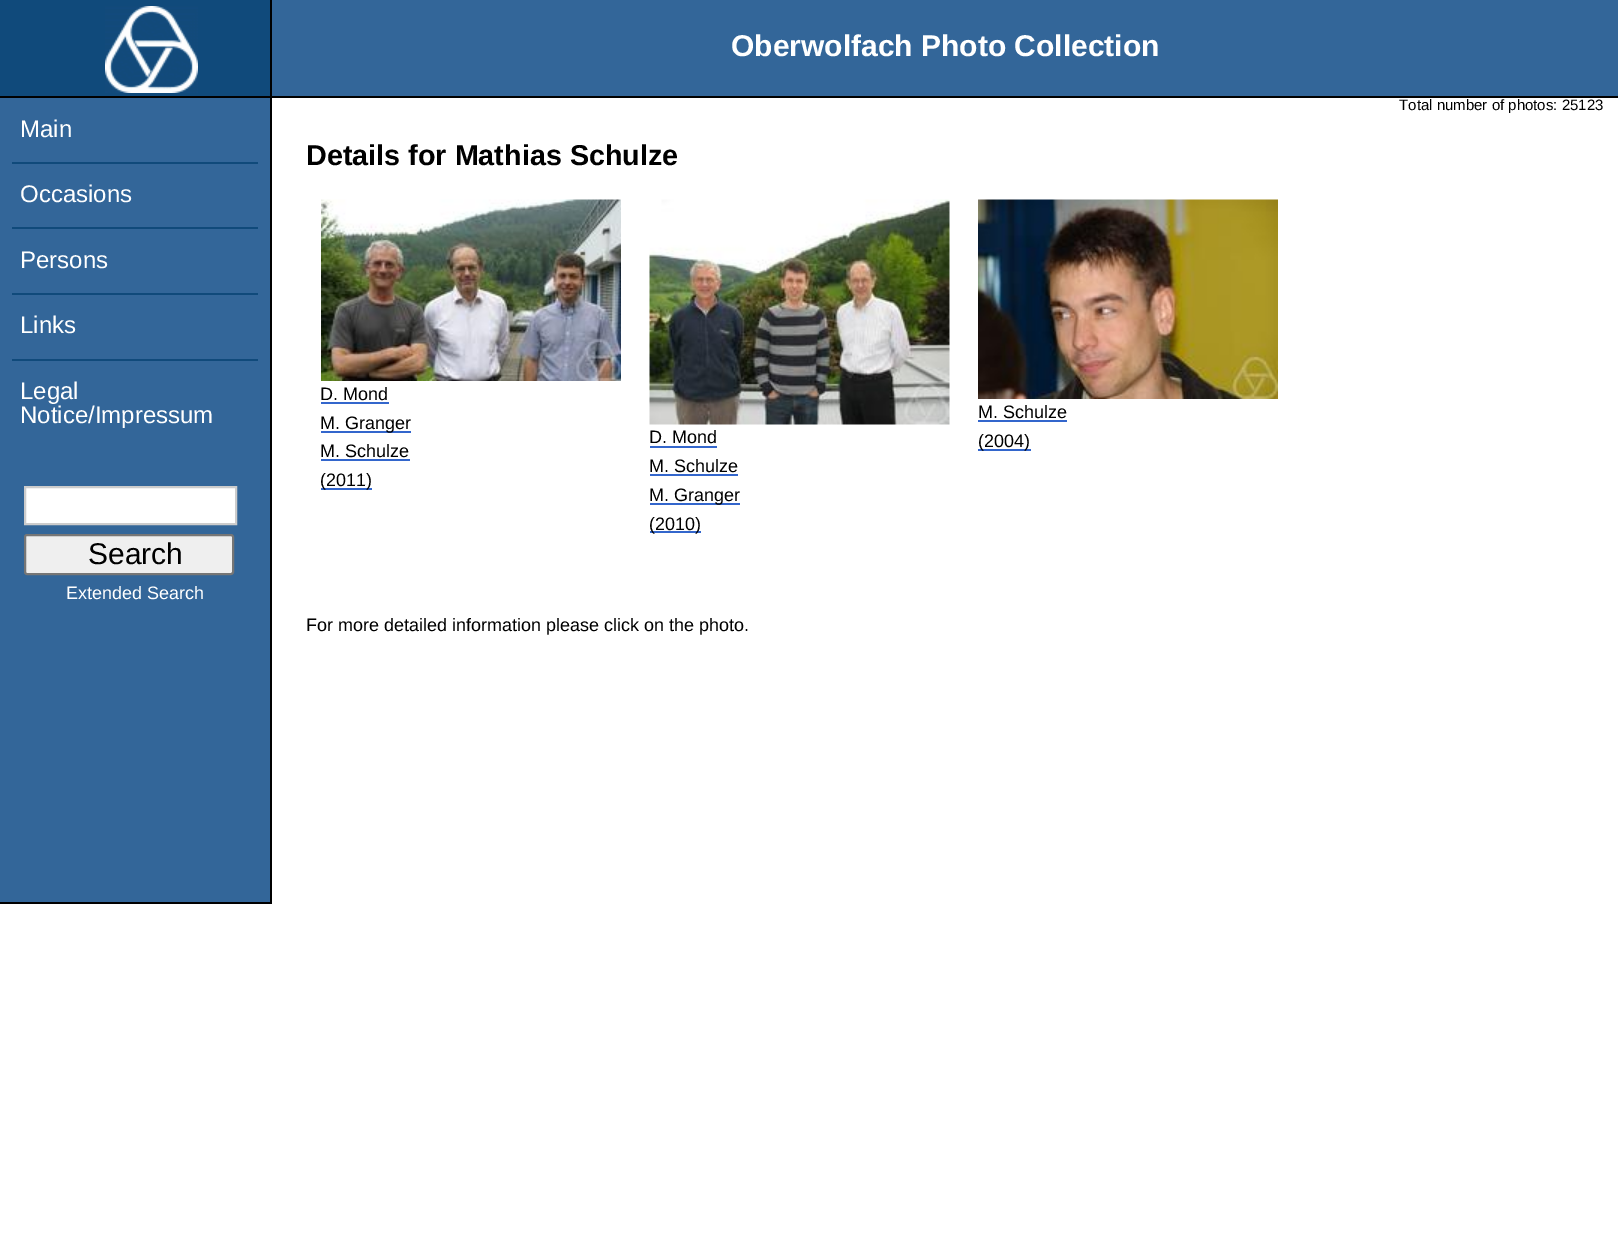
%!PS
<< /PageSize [1618 1258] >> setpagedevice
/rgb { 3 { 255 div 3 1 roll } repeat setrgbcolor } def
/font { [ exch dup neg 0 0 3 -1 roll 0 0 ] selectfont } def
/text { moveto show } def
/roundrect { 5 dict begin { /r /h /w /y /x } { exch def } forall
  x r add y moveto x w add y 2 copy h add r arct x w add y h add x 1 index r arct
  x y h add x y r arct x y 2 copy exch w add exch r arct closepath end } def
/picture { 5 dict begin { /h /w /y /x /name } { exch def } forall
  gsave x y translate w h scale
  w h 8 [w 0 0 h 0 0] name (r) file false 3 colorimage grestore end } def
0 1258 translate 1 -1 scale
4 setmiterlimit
255 255 255 rgb
0 0 1618 1258 rectfill
51 102 153 rgb
272 0 1346 96 rectfill
0 0 0 rgb
0 96 1618 2 rectfill
16 74 123 rgb
0 0 270 96 rectfill
0 0 0 rgb
270 0 2 96 rectfill
(img_01.rgb) 105 6 93 87 picture
51 102 153 rgb
0 98 270 804 rectfill
0 0 0 rgb
270 98 2 805 rectfill
0 902 272 2 rectfill
16 74 123 rgb
12 162 246 2 rectfill
12 227 246 2 rectfill
12 293 246 2 rectfill
12 359 246 2 rectfill
255 255 255 rgb
25 487 moveto 211 0 rlineto 0 37 rlineto -211 0 rlineto closepath gsave fill grestore
204 204 204 rgb
2 setlinewidth
stroke
239 239 239 rgb
25 535 208 39 2 roundrect gsave fill grestore
118 118 118 rgb
stroke
(img_02.rgb) 321 199 300 182 picture
51 102 204 rgb
321 402 68 2 rectfill
321 431 90 2 rectfill
321 459 89 2 rectfill
321 488 51 2 rectfill
(img_03.rgb) 649 199 301 226 picture
650 446 67 2 rectfill
650 474 88 2 rectfill
650 503 90 2 rectfill
650 531 51 2 rectfill
(img_04.rgb) 978 199 300 200 picture
978 420 89 2 rectfill
978 449 53 2 rectfill
/LiberationSans-Bold 30 font
255 255 255 rgb
(Oberwolfach Photo Collection) 731 56 text
/LiberationSans-Regular 15 font
0 0 0 rgb
(Total number of photos: 25123) 1399 110 text
/LiberationSans-Regular 24 font
255 255 255 rgb
(Main) 20 137 text
(Occasions) 20 202 text
(Persons) 20 268 text
(Links) 20 333 text
(Legal) 20 399 text
(Notice/Impressum) 20 423 text
/LiberationSans-Regular 30 font
0 0 0 rgb
(Search) 88 564 text
/LiberationSans-Regular 18 font
255 255 255 rgb
(Extended Search) 66 599 text
/LiberationSans-Bold 28.75 font
0 0 0 rgb
(Details for Mathias Schulze) 306 165 text
/LiberationSans-Regular 18 font
(D. Mond) 320 400 text
(M. Granger) 320 429 text
(M. Schulze) 320 457 text
(\(2011\)) 320 486 text
(D. Mond) 649 443 text
(M. Schulze) 649 472 text
(M. Granger) 649 501 text
(\(2010\)) 649 530 text
(M. Schulze) 978 418 text
(\(2004\)) 978 447 text
(For more detailed information please click on the photo.) 306 631 text
showpage
